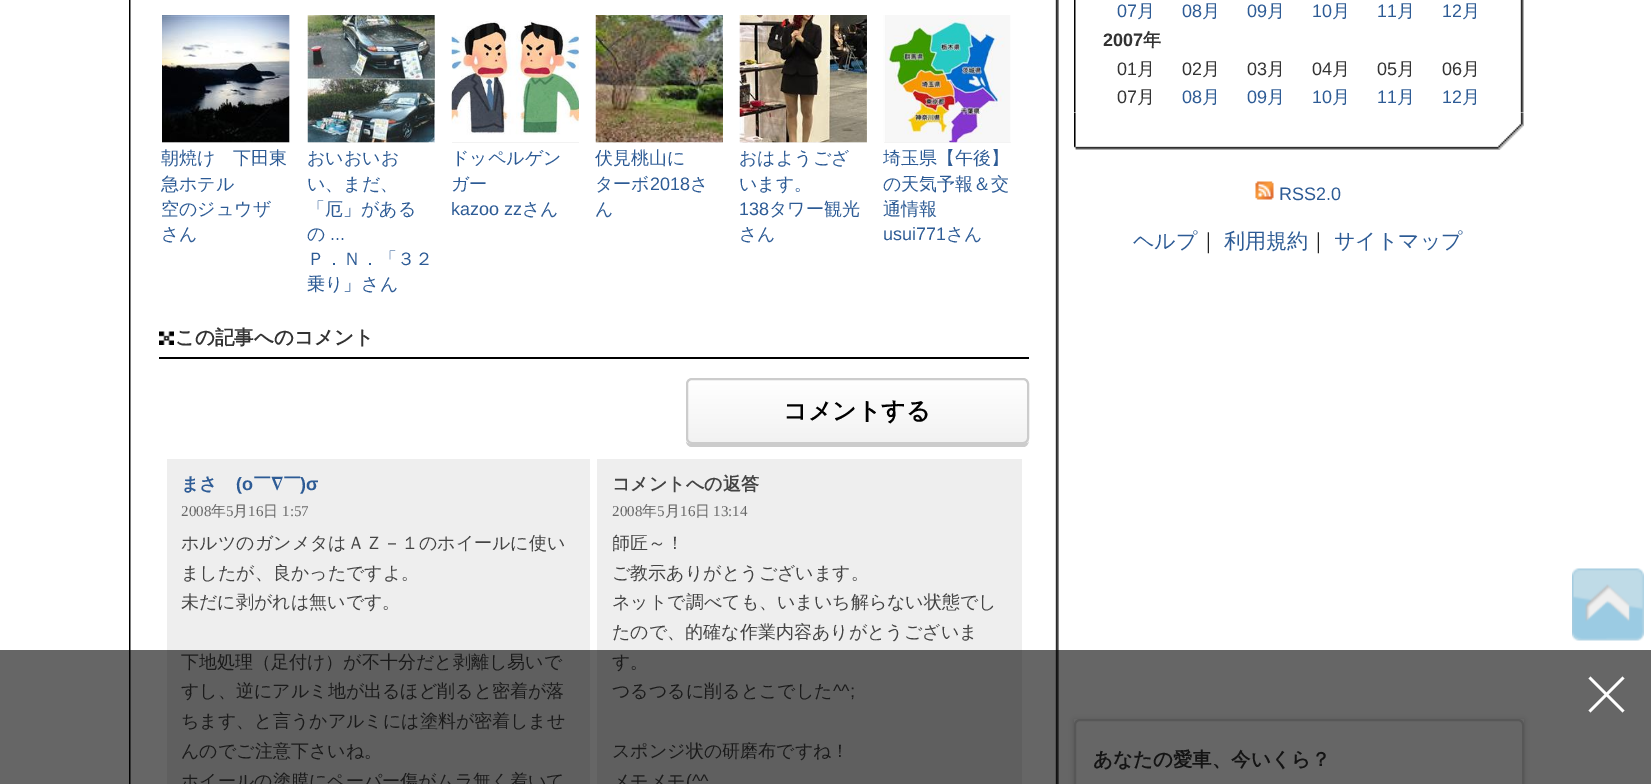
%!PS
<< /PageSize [1651 784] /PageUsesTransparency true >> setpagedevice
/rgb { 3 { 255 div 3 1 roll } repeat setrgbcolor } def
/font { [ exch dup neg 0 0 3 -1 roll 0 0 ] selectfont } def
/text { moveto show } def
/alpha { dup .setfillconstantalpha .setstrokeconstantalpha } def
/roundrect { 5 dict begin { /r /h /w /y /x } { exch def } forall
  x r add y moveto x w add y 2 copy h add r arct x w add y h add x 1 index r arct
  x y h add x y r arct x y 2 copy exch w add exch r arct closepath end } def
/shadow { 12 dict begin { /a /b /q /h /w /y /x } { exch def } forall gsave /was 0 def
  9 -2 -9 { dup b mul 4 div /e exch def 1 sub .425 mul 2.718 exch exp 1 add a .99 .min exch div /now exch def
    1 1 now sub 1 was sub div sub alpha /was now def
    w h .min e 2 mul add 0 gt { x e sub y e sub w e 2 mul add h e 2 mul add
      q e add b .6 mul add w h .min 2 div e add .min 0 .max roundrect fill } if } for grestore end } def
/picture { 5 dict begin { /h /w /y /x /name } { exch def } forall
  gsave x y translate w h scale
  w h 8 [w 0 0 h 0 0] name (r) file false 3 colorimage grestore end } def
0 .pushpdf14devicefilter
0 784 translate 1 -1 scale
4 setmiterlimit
255 255 255 rgb
0 0 1651 784 rectfill
(img_01.rgb) 129 0 930 784 picture
242 242 242 rgb
162 15 128 128 rectfill
(img_02.rgb) 162 15 128 128 picture
308 142 127 1 rectfill
(img_03.rgb) 307 15 128 128 picture
452 142 127 1 rectfill
(img_04.rgb) 451 15 128 127 picture
596 142 127 1 rectfill
(img_05.rgb) 595 15 128 128 picture
740 142 127 1 rectfill
(img_06.rgb) 739 15 128 128 picture
884 142 127 1 rectfill
(img_07.rgb) 883 15 128 128 picture
(img_08.rgb) 159 331 15 14 picture
0 0 0 rgb
159 357 870 2 rectfill
204 204 204 rgb
686 440 moveto 0 4 2 7 6 7 rcurveto 331 0 rlineto 5 0 6 -5 6 -9 rcurveto 0 3 -3 6 -6 6 rcurveto -331 0 rlineto -3 0 -5 -1 -6 -4 rcurveto closepath fill
gsave
686 378 343 66 6 roundrect clip newpath
gsave 686 380 moveto 343 0 rlineto 0 63 rlineto -343 0 rlineto closepath clip newpath
<< /ShadingType 2 /ColorSpace /DeviceRGB /Coords [857 380 857 443] /Extend [true true] /Function << /FunctionType 2 /Domain [0 1] /C0 [1 1 1] /C1 [0.949 0.949 0.949] /N 1 >> >> shfill grestore
grestore
2 setlinewidth
687 379 341 64 5 roundrect stroke
238 238 238 rgb
167 459 423 325 rectfill
597 459 425 325 rectfill
(img_09.rgb) 1074 113 450 37 picture
(img_10.rgb) 1074 0 450 113 picture
(img_11.rgb) 1255 181 19 19 picture
gsave
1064 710 moveto 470 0 rlineto 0 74 rlineto -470 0 rlineto closepath 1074 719 moveto 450 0 rlineto 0 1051 rlineto -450 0 rlineto closepath eoclip newpath
0 0 0 rgb
1074 720 450 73 0 3 0.16 shadow
grestore
217 217 217 rgb
1075 720 448 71 5 roundrect stroke
(img_12.rgb) 1572 568 72 73 picture
/WenQuanYiZenHei-Medium 18 font
45 91 149 rgb
(朝焼け　下田東) 161 164 text
(急ホテル) 161 190 text
(空のジュウザ) 161 215 text
(さん) 161 240 text
(おいおいお) 307 164 text
(い、まだ、) 307 190 text
(「厄」がある) 307 215 text
(の) 307 240 text
/LiberationSans-Regular 18 font
(...) 330 240 text
/WenQuanYiZenHei-Medium 18 font
(Ｐ．Ｎ．「３２) 307 265 text
(乗り」さん) 307 290 text
(ドッペルゲン) 451 164 text
(ガー) 451 190 text
/LiberationSans-Regular 18 font
(kazoo zz) 451 215 text
/WenQuanYiZenHei-Medium 18 font
(さん) 522 215 text
(伏見桃山に) 595 164 text
(ターボ) 595 190 text
/LiberationSans-Regular 18 font
(2018) 650 190 text
/WenQuanYiZenHei-Medium 18 font
(さ) 690 190 text
(ん) 595 215 text
(おはようござ) 739 164 text
(います。) 739 190 text
/LiberationSans-Regular 18 font
(138) 739 215 text
/WenQuanYiZenHei-Medium 18 font
(タワー観光) 769 215 text
(さん) 739 240 text
(埼玉県【午後】) 883 164 text
(の天気予報＆交) 883 190 text
(通情報) 883 215 text
/LiberationSans-Regular 18 font
(usui771) 883 240 text
/WenQuanYiZenHei-Medium 18 font
(さん) 946 240 text
/WenQuanYiZenHei-Bold 19.5 font
51 51 51 rgb
(この記事へのコメント) 175 344 text
/WenQuanYiZenHei-Bold 24 font
0 0 0 rgb
(コメントする) 783 419 text
/WenQuanYiZenHei-Bold 18 font
45 91 149 rgb
(まさ) 181 490 text
/LiberationSans-Bold 18 font
(\(o) 236 490 text
/WenQuanYiZenHei-Bold 18 font
(￣∇￣) 253 490 text
/LiberationSans-Bold 18 font
(\)σ) 300 490 text
/LiberationSerif-Regular 15 font
102 102 102 rgb
(2008) 181 516 text
/WenQuanYiZenHei-Medium 15 font
(年) 211 516 text
/LiberationSerif-Regular 15 font
(5) 226 516 text
/WenQuanYiZenHei-Medium 15 font
(月) 233 516 text
/LiberationSerif-Regular 15 font
(16) 248 516 text
/WenQuanYiZenHei-Medium 15 font
(日) 263 516 text
/LiberationSerif-Regular 15 font
(1:57) 282 516 text
/WenQuanYiZenHei-Medium 18 font
68 68 68 rgb
(ホルツのガンメタはＡＺ－１のホイールに使い) 181 549 text
(ましたが、良かったですよ。) 181 579 text
(未だに剥がれは無いです。) 181 608 text
(下地処理（足付け）が不十分だと剥離し易いで) 181 668 text
(すし、逆にアルミ地が出るほど削ると密着が落) 181 697 text
(ちます、と言うかアルミには塗料が密着しませ) 181 727 text
(んのでご注意下さいね。) 181 757 text
(ホイールの塗膜にペーパー傷がムラ無く着いて) 181 787 text
/WenQuanYiZenHei-Bold 18 font
(コメントへの返答) 612 490 text
/LiberationSerif-Regular 15 font
102 102 102 rgb
(2008) 612 516 text
/WenQuanYiZenHei-Medium 15 font
(年) 642 516 text
/LiberationSerif-Regular 15 font
(5) 657 516 text
/WenQuanYiZenHei-Medium 15 font
(月) 665 516 text
/LiberationSerif-Regular 15 font
(16) 680 516 text
/WenQuanYiZenHei-Medium 15 font
(日) 695 516 text
/LiberationSerif-Regular 15 font
(13:14) 713 516 text
/WenQuanYiZenHei-Medium 18 font
68 68 68 rgb
(師匠～！) 612 549 text
(ご教示ありがとうございます。) 612 579 text
(ネットで調べても、いまいち解らない状態でし) 612 608 text
(たので、的確な作業内容ありがとうございま) 612 638 text
(す。) 612 668 text
(つるつるに削るとこでした) 612 697 text
/LiberationSans-Regular 18 font
(^^;) 833 697 text
/WenQuanYiZenHei-Medium 18 font
(スポンジ状の研磨布ですね！) 612 757 text
(メモメモ) 612 787 text
/LiberationSans-Regular 18 font
(\(^^) 686 787 text
45 91 149 rgb
(07) 1117 17 text
/WenQuanYiZenHei-Medium 18 font
(月) 1137 17 text
/LiberationSans-Regular 18 font
(08) 1182 17 text
/WenQuanYiZenHei-Medium 18 font
(月) 1202 17 text
/LiberationSans-Regular 18 font
(09) 1247 17 text
/WenQuanYiZenHei-Medium 18 font
(月) 1267 17 text
/LiberationSans-Regular 18 font
(10) 1312 17 text
/WenQuanYiZenHei-Medium 18 font
(月) 1332 17 text
/LiberationSans-Regular 18 font
(11) 1377 17 text
/WenQuanYiZenHei-Medium 18 font
(月) 1397 17 text
/LiberationSans-Regular 18 font
(12) 1442 17 text
/WenQuanYiZenHei-Medium 18 font
(月) 1462 17 text
/LiberationSans-Bold 18 font
51 51 51 rgb
(2007) 1103 46 text
/WenQuanYiZenHei-Bold 18 font
(年) 1143 46 text
/LiberationSans-Regular 18 font
(01) 1117 75 text
/WenQuanYiZenHei-Medium 18 font
(月) 1137 75 text
/LiberationSans-Regular 18 font
(02) 1182 75 text
/WenQuanYiZenHei-Medium 18 font
(月) 1202 75 text
/LiberationSans-Regular 18 font
(03) 1247 75 text
/WenQuanYiZenHei-Medium 18 font
(月) 1267 75 text
/LiberationSans-Regular 18 font
(04) 1312 75 text
/WenQuanYiZenHei-Medium 18 font
(月) 1332 75 text
/LiberationSans-Regular 18 font
(05) 1377 75 text
/WenQuanYiZenHei-Medium 18 font
(月) 1397 75 text
/LiberationSans-Regular 18 font
(06) 1442 75 text
/WenQuanYiZenHei-Medium 18 font
(月) 1462 75 text
/LiberationSans-Regular 18 font
(07) 1117 103 text
/WenQuanYiZenHei-Medium 18 font
(月) 1137 103 text
/LiberationSans-Regular 18 font
45 91 149 rgb
(08) 1182 103 text
/WenQuanYiZenHei-Medium 18 font
(月) 1202 103 text
/LiberationSans-Regular 18 font
(09) 1247 103 text
/WenQuanYiZenHei-Medium 18 font
(月) 1267 103 text
/LiberationSans-Regular 18 font
(10) 1312 103 text
/WenQuanYiZenHei-Medium 18 font
(月) 1332 103 text
/LiberationSans-Regular 18 font
(11) 1377 103 text
/WenQuanYiZenHei-Medium 18 font
(月) 1397 103 text
/LiberationSans-Regular 18 font
(12) 1442 103 text
/WenQuanYiZenHei-Medium 18 font
(月) 1462 103 text
/LiberationSans-Regular 18 font
(RSS2.0) 1279 200 text
/WenQuanYiZenHei-Medium 21 font
(ヘルプ) 1133 248 text
34 34 34 rgb
(｜) 1198 248 text
45 91 149 rgb
(利用規約) 1224 248 text
34 34 34 rgb
(｜) 1308 248 text
45 91 149 rgb
(サイトマップ) 1334 248 text
/WenQuanYiZenHei-Bold 19.5 font
51 51 51 rgb
(あなたの愛車、今いくら？) 1093 766 text
0.6 alpha
0 0 0 rgb
0 650 1651 134 rectfill
1 alpha
255 255 255 rgb
1590.5 676.5 moveto 34 34 rlineto -2 2 rlineto -34 -34 rlineto closepath fill
1588.5 710.5 moveto 34 -34 rlineto 2 2 rlineto -34 34 rlineto closepath fill
.poppdf14devicefilter showpage
